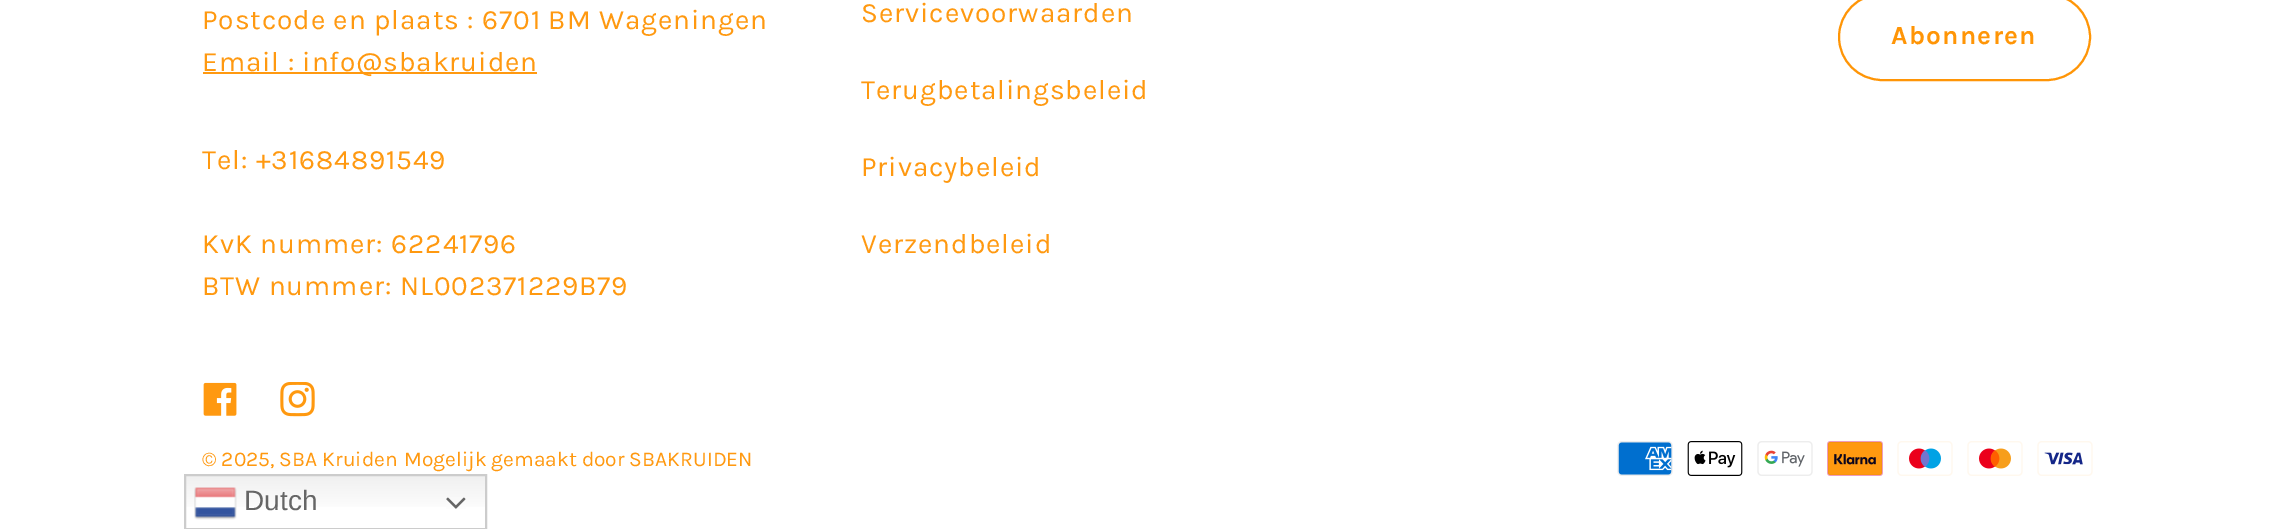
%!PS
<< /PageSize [2294 529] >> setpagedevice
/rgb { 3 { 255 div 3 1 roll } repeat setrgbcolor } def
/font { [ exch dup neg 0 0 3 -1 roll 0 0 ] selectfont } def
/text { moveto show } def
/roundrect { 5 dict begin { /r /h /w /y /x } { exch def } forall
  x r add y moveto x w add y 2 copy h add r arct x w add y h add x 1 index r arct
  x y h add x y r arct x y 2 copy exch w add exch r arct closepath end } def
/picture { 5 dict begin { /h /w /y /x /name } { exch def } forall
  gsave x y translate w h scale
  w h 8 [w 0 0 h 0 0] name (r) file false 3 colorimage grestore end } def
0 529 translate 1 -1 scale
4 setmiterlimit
255 255 255 rgb
0 0 2294 529 rectfill
255 153 16 rgb
203 72 334 2 rectfill
255 149 6 rgb
2 setlinewidth
1839 -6 251 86 43 roundrect stroke
(img_01.rgb) 203 382 34 34 picture
(img_02.rgb) 280 382 35 35 picture
(img_03.rgb) 1617 441 56 35 picture
(img_04.rgb) 1687 441 56 35 picture
(img_05.rgb) 1757 441 56 35 picture
(img_06.rgb) 1827 441 56 35 picture
(img_07.rgb) 1897 441 56 35 picture
(img_08.rgb) 1967 441 56 35 picture
(img_09.rgb) 2037 441 56 35 picture
gsave 186 476 moveto 299 0 rlineto 0 31 rlineto -299 0 rlineto closepath clip newpath
<< /ShadingType 2 /ColorSpace /DeviceRGB /Coords [335 474 335 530] /Extend [true true] /Function << /FunctionType 3 /Domain [0 1] /Functions [<< /FunctionType 2 /Domain [0 1] /C0 [0.937 0.937 0.937] /C1 [1 1 1] /N 1 >> << /FunctionType 2 /Domain [0 1] /C0 [1 1 1] /C1 [1 1 1] /N 1 >>] /Bounds [0.7] /Encode [0 1 0 1] >> >> shfill grestore
204 204 204 rgb
185 475 301 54 rectstroke
(img_10.rgb) 194 487 43 33 picture
(img_11.rgb) 446 497 20 12 picture
/Karla-Regular 28 font
255 153 16 rgb
202 29 moveto 0.9 0 (Postcode en plaats : 6701 BM Wageningen) ashow
202 71 moveto 0.9 0 (Email : info@sbakruiden) ashow
202 169 moveto 0.9 0 (Tel: +31684891549) ashow
202 253 moveto 0.9 0 (KvK nummer: 62241796) ashow
202 295 moveto 0.9 0 (BTW nummer: NL002371229B79) ashow
861 22 moveto 0.9 0 (Servicevoorwaarden) ashow
861 99 moveto 0.9 0 (Terugbetalingsbeleid) ashow
861 176 moveto 0.9 0 (Privacybeleid) ashow
861 253 moveto 0.9 0 (Verzendbeleid) ashow
/Karla-Bold 26.25 font
255 149 6 rgb
1891 44 moveto 1.25 0 (Abonneren) ashow
/Karla-Regular 21 font
255 153 16 rgb
(© 2025, SBA Kruiden) 202 466 text
(Mogelijk gemaakt door SBAKRUIDEN) 404 466 text
/LiberationSans-Regular 28 font
102 102 102 rgb
(Dutch) 244 510 text
showpage
